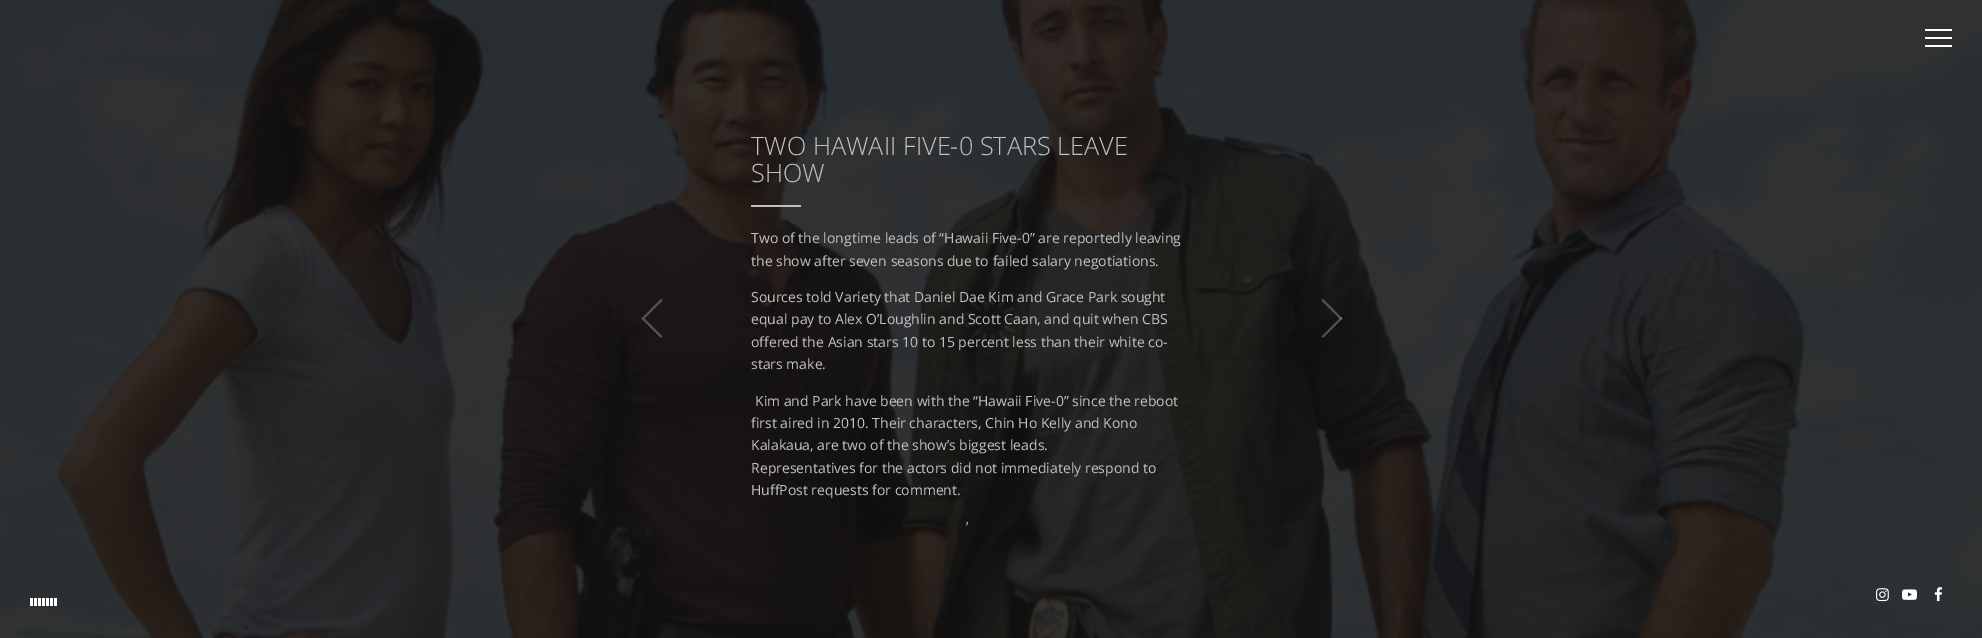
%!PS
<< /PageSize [1982 638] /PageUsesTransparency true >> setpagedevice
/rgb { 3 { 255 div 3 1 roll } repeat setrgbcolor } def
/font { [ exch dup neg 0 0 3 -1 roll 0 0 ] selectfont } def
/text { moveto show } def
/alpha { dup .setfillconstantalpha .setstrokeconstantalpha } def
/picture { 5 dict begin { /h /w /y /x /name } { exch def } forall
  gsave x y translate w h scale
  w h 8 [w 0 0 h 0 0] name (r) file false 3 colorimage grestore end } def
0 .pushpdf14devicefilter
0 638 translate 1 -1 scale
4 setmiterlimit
255 255 255 rgb
0 0 1982 638 rectfill
(img_01.rgb) 0 0 1982 638 picture
1925 37 27 2 rectfill
1925 29 27 2 rectfill
1925 45 27 2 rectfill
85 83 83 rgb
643 320 moveto -1.5 -1.5 rlineto 19.5 -19.5 rlineto 1.5 1.5 rlineto closepath fill
641.5 318.5 moveto 1.5 -1.5 rlineto 19.5 19.5 rlineto -1.5 1.5 rlineto closepath fill
191 191 191 rgb
751 205 50 2 rectfill
0.35 alpha
194 194 194 rgb
1342.5 318.5 moveto -1.5 1.5 rlineto -19.5 -19.5 rlineto 1.5 -1.5 rlineto closepath fill
1341 317 moveto 1.5 1.5 rlineto -19.5 19.5 rlineto -1.5 -1.5 rlineto closepath fill
0.05 alpha
255 255 255 rgb
1006 318 11 3 rectfill
1006 325.5 moveto 6.5 3.5 rlineto 1.5 0.5 2.5 1 1.5 3 rcurveto -1 0.5 rlineto -8.5 -4.5 rlineto -1 -1 0 -3 1.5 -2.5 rcurveto closepath fill
1001.5 331.5 moveto 5 8 rlineto 0 1 rlineto -1.5 1.5 -2 0.5 -3 -1 rcurveto -4.5 -6 rlineto -0.5 -1.5 1.5 -3 2.5 -2 rcurveto closepath 994.5 335 moveto 1 9.5 rlineto -0.5 0.5 rlineto -2 1 -2.5 0 -2.5 -2 rcurveto -1 -7.5 rlineto 0 -1.5 3 -1.5 3 -0.5 rcurveto closepath 987 335 moveto -2.5 7 rlineto -0.5 2 -1 3 -3 1.5 rcurveto -0.5 -1 rlineto 3 -8.5 rlineto 1 -1.5 3.5 -0.5 3 1 rcurveto closepath 980 331.5 moveto -5.5 5 rlineto -1.5 1 -2 2 -3.5 0 rcurveto 0.5 -1 rlineto 7 -6.5 rlineto 1 -0.5 2.5 1.5 1.5 2.5 rcurveto closepath 976 325 moveto -9 2 rlineto -1 -0.5 rlineto -1 -2 0 -2.5 2 -3 rcurveto 7.5 -1.5 rlineto 1 0 1.5 2.5 0.5 3 rcurveto closepath 975 317.5 moveto -7 -2 rlineto -2 0 -3 -0.5 -2 -2.5 rcurveto 1 -0.5 rlineto 9 2 rlineto 1 0.5 0.5 3 -1 3 rcurveto closepath 978 310 moveto -5.5 -5 rlineto -1.5 -1 -2.5 -1.5 -0.5 -3 rcurveto 1 0 rlineto 7 6 rlineto 1 1 -1 3 -2 2 rcurveto closepath fill
984 305 moveto -3.5 -8.5 rlineto 0.5 -1 rlineto 2 -1 2.5 0 3 1.5 rcurveto 2.5 7 rlineto 0.5 1.5 -2 2.5 -2.5 1 rcurveto closepath 991 303.5 moveto 1 -7.5 rlineto 0 -2 0.5 -3 2.5 -2.5 rcurveto 0.5 1 rlineto -1 9.5 rlineto -0.5 1 -3 1 -3 -0.5 rcurveto closepath 998.5 305.5 moveto 4.5 -6.5 rlineto 1 -1.5 1.5 -2 3 -0.5 rcurveto 0.5 1 rlineto -5.5 7.5 rlineto -1 1 -3 -0.5 -2.5 -1.5 rcurveto closepath fill
1004.5 310.5 moveto 8 -4 rlineto 1 0 rlineto 1.5 2 0.5 2.5 -1 3.5 rcurveto -7 3.5 rlineto -1 0.5 -2.5 -2 -1 -3 rcurveto closepath fill
1 alpha
30 598 3 8 rectfill
34 598 3 8 rectfill
38 598 3 8 rectfill
42 598 3 8 rectfill
46 598 3 8 rectfill
50 598 3 8 rectfill
54 598 3 8 rectfill
(img_02.rgb) 1876 588 13 14 picture
(img_03.rgb) 1902 589 15 11 picture
(img_04.rgb) 1934 587 9 15 picture
/OpenSans-Light 25.25 font
194 194 194 rgb
(TWO HAWAII FIVE-0 STARS LEAVE) 751 155 text
(SHOW) 751 182 text
/OpenSans-Regular 14 font
(Two of the longtime leads of “Hawaii Five-0” are reportedly leaving) 751 243 text
(the show after seven seasons due to failed salary negotiations.) 751 266 text
(Sources told Variety) 751 302 text
(that Daniel Dae Kim and Grace Park sought) 884 302 text
(equal pay to Alex O’Loughlin and Scott Caan, and quit when CBS) 751 324 text
(offered the Asian stars 10 to 15 percent less than their white co-) 751 347 text
(stars make.) 751 369 text
(Kim and Park have been with the “Hawaii Five-0” since the reboot) 755 406 text
(first aired in 2010. Their characters, Chin Ho Kelly and Kono) 751 428 text
(Kalakaua, are two of the show’s biggest leads.) 751 450 text
(Representatives for the actors did not immediately respond to) 751 473 text
(HuffPost requests for comment.) 751 495 text
(’) 966 532 text
.poppdf14devicefilter showpage
